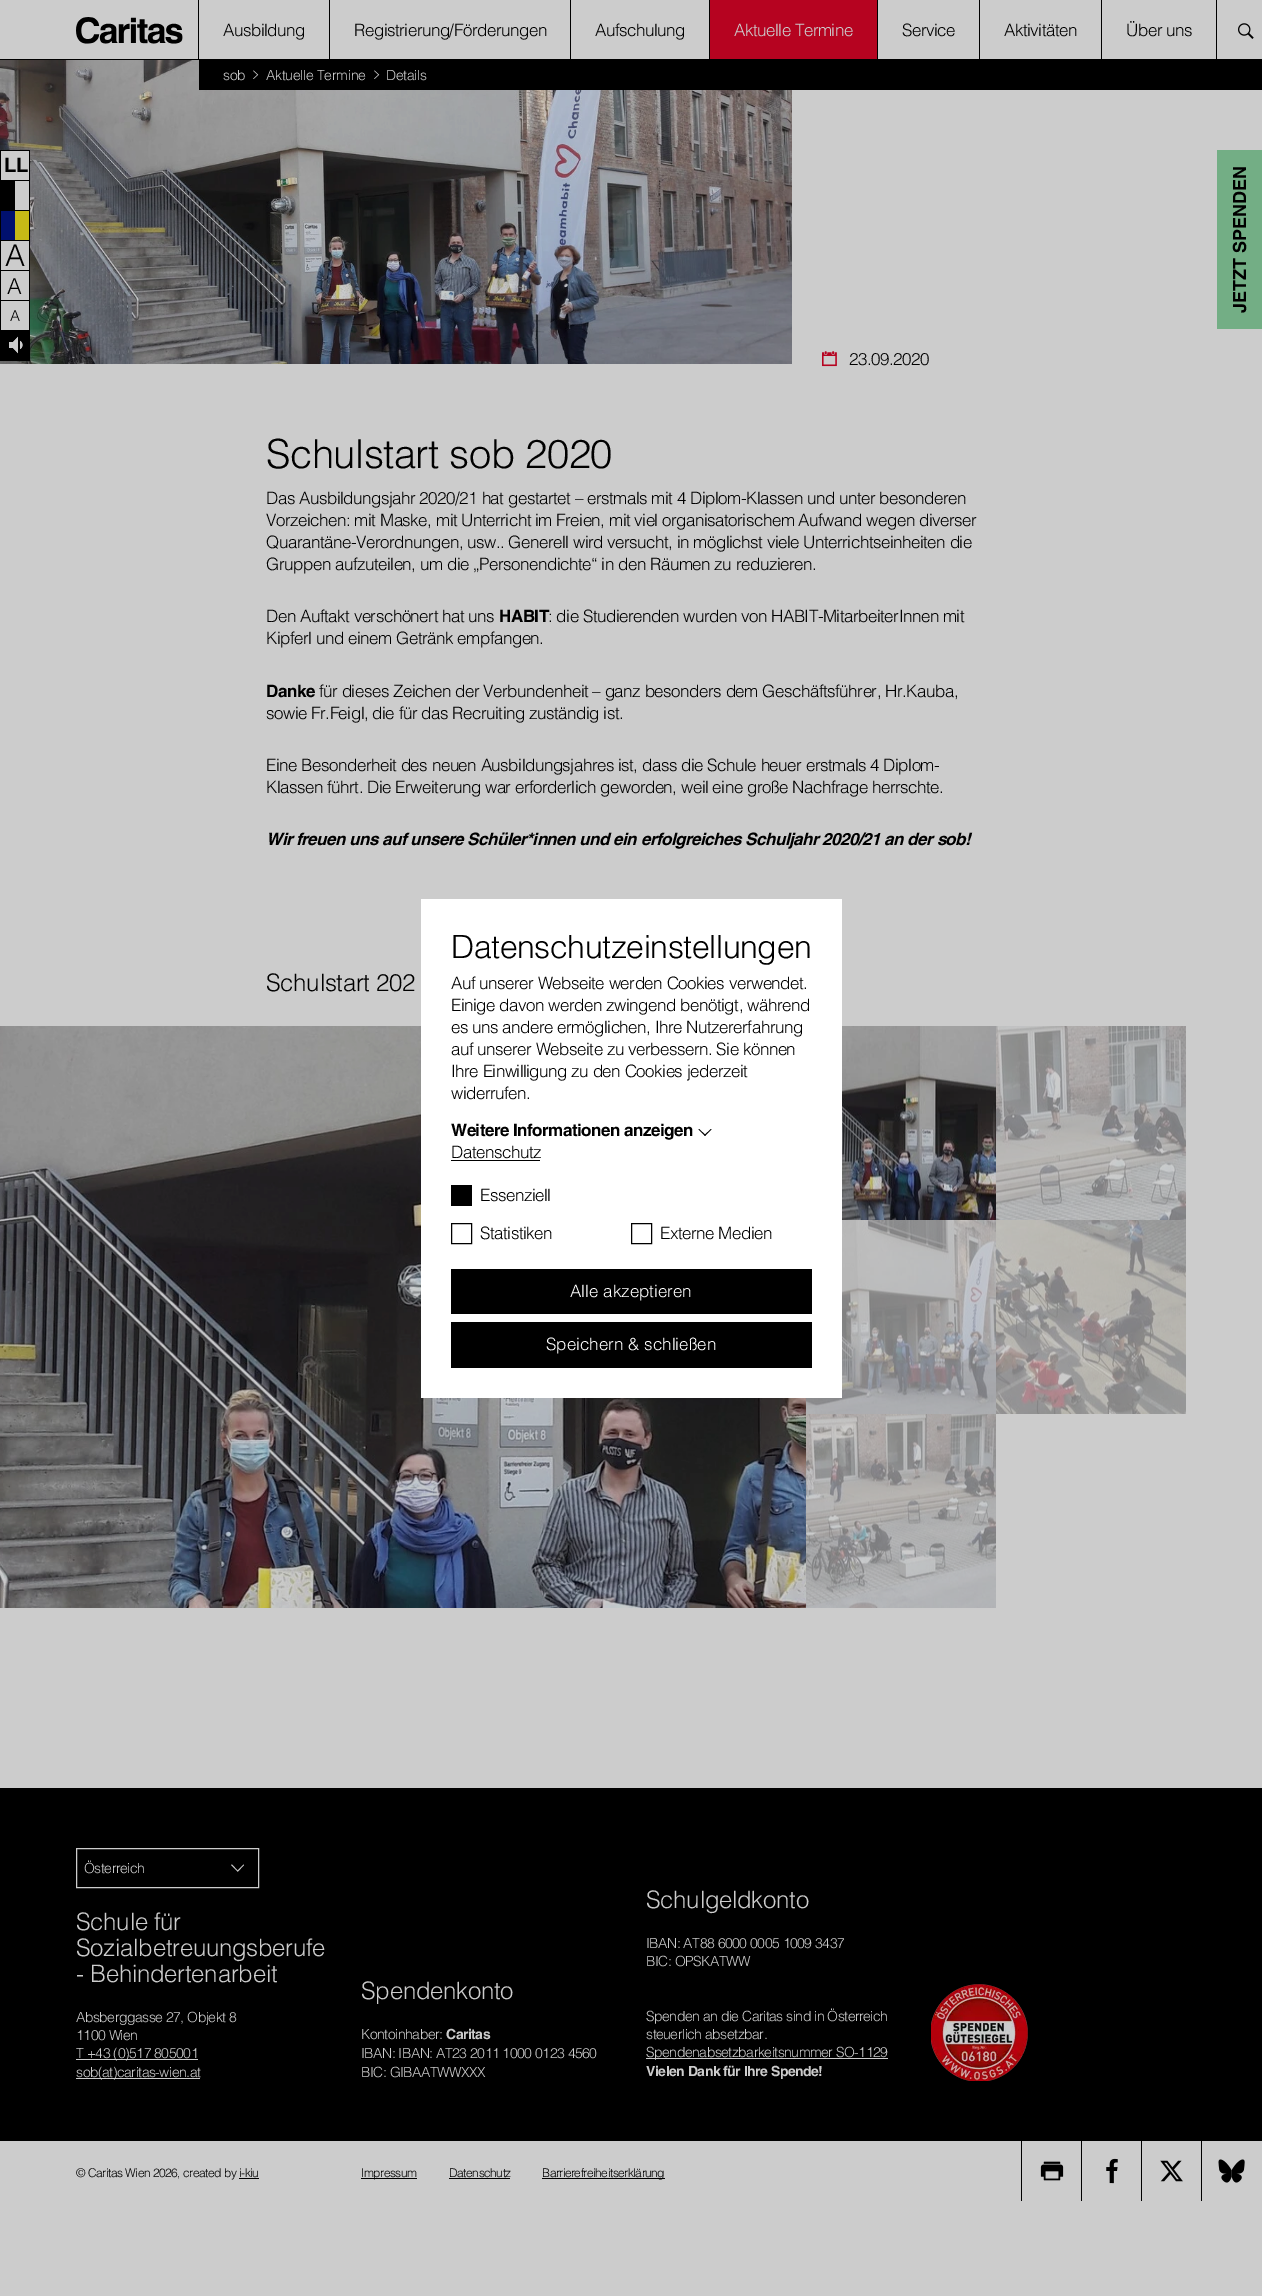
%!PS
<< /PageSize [1262 2296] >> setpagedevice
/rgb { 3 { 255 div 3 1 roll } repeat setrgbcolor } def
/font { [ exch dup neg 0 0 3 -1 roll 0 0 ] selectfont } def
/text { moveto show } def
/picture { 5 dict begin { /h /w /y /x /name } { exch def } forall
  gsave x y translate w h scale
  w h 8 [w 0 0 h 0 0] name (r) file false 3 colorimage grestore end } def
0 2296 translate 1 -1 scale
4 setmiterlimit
204 204 204 rgb
0 0 1262 2296 rectfill
0 0 0 rgb
0 59 1262 1 rectfill
(img_01.rgb) 76 17 107 27 picture
198 0 1 59 rectfill
329 0 1 59 rectfill
570 0 1 59 rectfill
182 3 32 rgb
710 0 167 59 rectfill
0 0 0 rgb
709 0 1 59 rectfill
877 0 1 59 rectfill
979 0 1 59 rectfill
1101 0 1 59 rectfill
1216 0 1 59 rectfill
(img_02.rgb) 1238 23 16 16 picture
(img_06.rgb) 0 60 792 304 picture
199 60 1063 30 rectfill
(img_03.rgb) 253 70 6 9 picture
(img_03.rgb) 374 70 6 9 picture
204 204 204 rgb
1 151 28 179 rectfill
0 0 0 rgb
0 330 30 31 rectfill
0 150 30 1 rectfill
29 150 1 30 rectfill
0 150 1 30 rectfill
0 180 30 1 rectfill
29 180 1 30 rectfill
0 180 1 30 rectfill
1 181 14 29 rectfill
0 210 30 1 rectfill
29 210 1 30 rectfill
0 210 1 30 rectfill
0 16 110 rgb
1 211 14 29 rectfill
198 185 22 rgb
15 211 14 29 rectfill
0 0 0 rgb
0 240 30 1 rectfill
29 240 1 30 rectfill
0 240 1 30 rectfill
0 270 30 1 rectfill
29 270 1 30 rectfill
0 270 1 30 rectfill
0 300 30 1 rectfill
29 300 1 30 rectfill
0 300 1 30 rectfill
(img_04.rgb) 9 336 14 18 picture
(img_05.rgb) 13 336 10 18 picture
115 174 133 rgb
1217 150 45 179 rectfill
(img_07.rgb) 822 351 15 16 picture
(img_08.rgb) 0 1026 806 582 picture
(img_09.rgb) 842 1026 154 194 picture
(img_10.rgb) 996 1026 190 194 picture
(img_11.rgb) 806 1220 190 194 picture
(img_12.rgb) 996 1220 190 194 picture
(img_13.rgb) 806 1414 190 194 picture
255 255 255 rgb
421 899 421 499 rectfill
0 0 0 rgb
699 1129 moveto 6.5 6 rlineto -0.5 1 rlineto -6.5 -6.5 rlineto closepath fill
704.5 1135 moveto 6.5 -6 rlineto 0.5 0.5 rlineto -6.5 6.5 rlineto closepath fill
451 1160 89 1 rectfill
451 1185 21 21 rectfill
451.5 1223.5 20 20 rectstroke
631.5 1223.5 20 20 rectstroke
451 1269 361 45 rectfill
451 1322 361 46 rectfill
0 1788 1262 353 rectfill
204 204 204 rgb
76.5 1848.5 182 39 rectstroke
232 1864.5 moveto 6 6.5 rlineto -0.5 0.5 rlineto -6.5 -6.5 rlineto closepath fill
237 1871 moveto 6.5 -6.5 rlineto 0.5 0.5 rlineto -6 6.5 rlineto closepath fill
76 2059 122 1 rectfill
76 2078 124 1 rectfill
646 2058 242 1 rectfill
(img_14.rgb) 931 1984 97 97 picture
0 0 0 rgb
239 2178 20 1 rectfill
361 2178 56 1 rectfill
449 2178 61 1 rectfill
542 2178 123 1 rectfill
1021 2141 1 60 rectfill
(img_15.rgb) 1040 2161 24 20 picture
1081 2141 1 60 rectfill
(img_16.rgb) 1106 2158 12 26 picture
1141 2141 1 60 rectfill
(img_17.rgb) 1160 2160 23 22 picture
1201 2141 1 60 rectfill
(img_18.rgb) 1218 2159 27 24 picture
/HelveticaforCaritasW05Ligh-Light 17 font
223 36 moveto -0.5 0 (Ausbildung) ashow
354 36 moveto -0.5 0 (Registrierung/Förderungen) ashow
595 36 moveto -0.5 0 (Aufschulung) ashow
204 204 204 rgb
734 36 moveto -0.5 0 (Aktuelle Termine) ashow
0 0 0 rgb
902 36 moveto -0.5 0 (Service) ashow
1004 36 moveto -0.5 0 (Aktivitäten) ashow
1126 36 moveto -0.5 0 (Über uns) ashow
/HelveticaforCaritasW05Ligh-Light 14 font
204 204 204 rgb
223 80 moveto -0.3 0 (sob) ashow
266 80 moveto -0.3 0 (Aktuelle Termine) ashow
386 80 moveto -0.3 0 (Details) ashow
/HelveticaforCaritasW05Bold-Bold 20 font
0 0 0 rgb
4 172 moveto -0.5 0 (LL) ashow
/HelveticaforCaritasW05Ligh-Light 30 font
(A) 5 266 text
/HelveticaforCaritasW05Ligh-Light 22 font
(A) 7 294 text
/HelveticaforCaritasW05Ligh-Light 15 font
(A) 10 321 text
/HelveticaforCaritasW05Bold-Bold 18 font
gsave 1246 313 translate -90 rotate 0 0 moveto (JETZT SPENDEN) show grestore
/HelveticaforCaritasW05Ligh-Light 17 font
849 365 moveto -0.5 0 (23.09.2020) ashow
/HelveticaforCaritasW05Ligh-Light 40 font
266 468 moveto -0.5 0 (Schulstart sob 2020) ashow
/HelveticaforCaritasW05Ligh-Light 17 font
266 504 moveto -0.5 0 (Das Ausbildungsjahr 2020/21 hat gestartet – erstmals mit 4 Diplom-Klassen und unter besonderen) ashow
266 526 moveto -0.5 0 (Vorzeichen: mit Maske, mit Unterricht im Freien, mit viel organisatorischem Aufwand wegen diverser) ashow
266 548 moveto -0.5 0 (Quarantäne-Verordnungen, usw.. Generell wird versucht, in möglichst viele Unterrichtseinheiten die) ashow
266 570 moveto -0.5 0 (Gruppen aufzuteilen, um die „Personendichte“ in den Räumen zu reduzieren.) ashow
266 622 moveto -0.5 0 (Den Auftakt verschönert hat uns) ashow
/HelveticaforCaritasW05Bold-Bold 17 font
499 622 moveto -0.5 0 (HABIT) ashow
/HelveticaforCaritasW05Ligh-Light 17 font
548 622 moveto -0.5 0 (: die Studierenden wurden von HABIT-MitarbeiterInnen mit) ashow
266 644 moveto -0.5 0 (Kipferl und einem Getränk empfangen.) ashow
/HelveticaforCaritasW05Bold-Bold 17 font
266 697 moveto -0.5 0 (Danke) ashow
/HelveticaforCaritasW05Ligh-Light 17 font
319 697 moveto -0.5 0 (für dieses Zeichen der Verbundenheit – ganz besonders dem Geschäftsführer, Hr.Kauba,) ashow
266 719 moveto -0.5 0 (sowie Fr.Feigl, die für das Recruiting zuständig ist.) ashow
266 771 moveto -0.5 0 (Eine Besonderheit des neuen Ausbildungsjahres ist, dass die Schule heuer erstmals 4 Diplom-) ashow
266 793 moveto -0.5 0 (Klassen führt. Die Erweiterung war erforderlich geworden, weil eine große Nachfrage herrschte.) ashow
/HelveticaforCaritasW05Bold-BoldItalic 17 font
266 845 moveto -0.5 0 (Wir freuen uns auf unsere Schüler*innen und ein erfolgreiches Schuljahr 2020/21 an der sob!) ashow
/HelveticaforCaritasW05Ligh-Light 24 font
266 991 moveto -0.3 0 (Schulstart 202) ashow
/HelveticaforCaritasW05Ligh-Light 32 font
451 958 moveto -0.4 0 (Datenschutzeinstellungen) ashow
/HelveticaforCaritasW05Ligh-Light 17 font
451 989 moveto -0.5 0 (Auf unserer Webseite werden Cookies verwendet.) ashow
451 1011 moveto -0.5 0 (Einige davon werden zwingend benötigt, während) ashow
451 1033 moveto -0.5 0 (es uns andere ermöglichen, Ihre Nutzererfahrung) ashow
451 1055 moveto -0.5 0 (auf unserer Webseite zu verbessern. Sie können) ashow
451 1077 moveto -0.5 0 (Ihre Einwilligung zu den Cookies jederzeit) ashow
451 1099 moveto -0.5 0 (widerrufen.) ashow
/HelveticaforCaritasW05Bold-Bold 17 font
451 1136 moveto -0.5 0 (Weitere Informationen anzeigen) ashow
/HelveticaforCaritasW05Ligh-Light 17 font
451 1158 moveto -0.5 0 (Datenschutz) ashow
480 1201 moveto -0.5 0 (Essenziell) ashow
480 1239 moveto -0.5 0 (Statistiken) ashow
660 1239 moveto -0.5 0 (Externe Medien) ashow
255 255 255 rgb
(Alle akzeptieren) 570 1297 text
(Speichern & schließen) 546 1350 text
/HelveticaforCaritasW05Ligh-Light 14 font
204 204 204 rgb
84 1873 moveto -0.5 0 (Österreich) ashow
/HelveticaforCaritasW05Ligh-Light 24 font
76 1930 moveto -0.3 0 (Schule für) ashow
76 1956 moveto -0.3 0 (Sozialbetreuungsberufe) ashow
76 1982 moveto -0.3 0 (- Behindertenarbeit) ashow
/HelveticaforCaritasW05Ligh-Light 14 font
76 2022 moveto -0.5 0 (Absberggasse 27, Objekt 8) ashow
76 2040 moveto -0.5 0 (1100 Wien) ashow
76 2058 moveto -0.5 0 (T +43 \(0\)517 805001) ashow
76 2077 moveto -0.5 0 (sob\(at\)caritas-wien.at) ashow
/HelveticaforCaritasW05Ligh-Light 24 font
361 1999 moveto -0.3 0 (Spendenkonto) ashow
/HelveticaforCaritasW05Ligh-Light 14 font
361 2039 moveto -0.5 0 (Kontoinhaber:) ashow
/HelveticaforCaritasW05Bold-Bold 14 font
446 2039 moveto -0.5 0 (Caritas) ashow
/HelveticaforCaritasW05Ligh-Light 14 font
361 2058 moveto -0.5 0 (IBAN: IBAN: AT23 2011 1000 0123 4560) ashow
361 2077 moveto -0.5 0 (BIC: GIBAATWWXXX) ashow
/HelveticaforCaritasW05Ligh-Light 24 font
646 1908 moveto -0.3 0 (Schulgeldkonto) ashow
/HelveticaforCaritasW05Ligh-Light 14 font
646 1948 moveto -0.5 0 (IBAN: AT88 6000 0005 1009 3437) ashow
646 1966 moveto -0.5 0 (BIC: OPSKATWW) ashow
646 2021 moveto -0.5 0 (Spenden an die Caritas sind in Österreich) ashow
646 2039 moveto -0.5 0 (steuerlich absetzbar.) ashow
646 2057 moveto -0.5 0 (Spendenabsetzbarkeitsnummer SO-1129) ashow
/HelveticaforCaritasW05Bold-Bold 14 font
646 2076 moveto -0.5 0 (Vielen Dank für Ihre Spende!) ashow
/HelveticaforCaritasW05Ligh-Light 12 font
0 0 0 rgb
76 2177 moveto -0.5 0 (© Caritas Wien 2026, created by i-kiu) ashow
361 2177 moveto -0.5 0 (Impressum) ashow
449 2177 moveto -0.5 0 (Datenschutz) ashow
542 2177 moveto -0.5 0 (Barrierefreiheitserklärung) ashow
showpage
